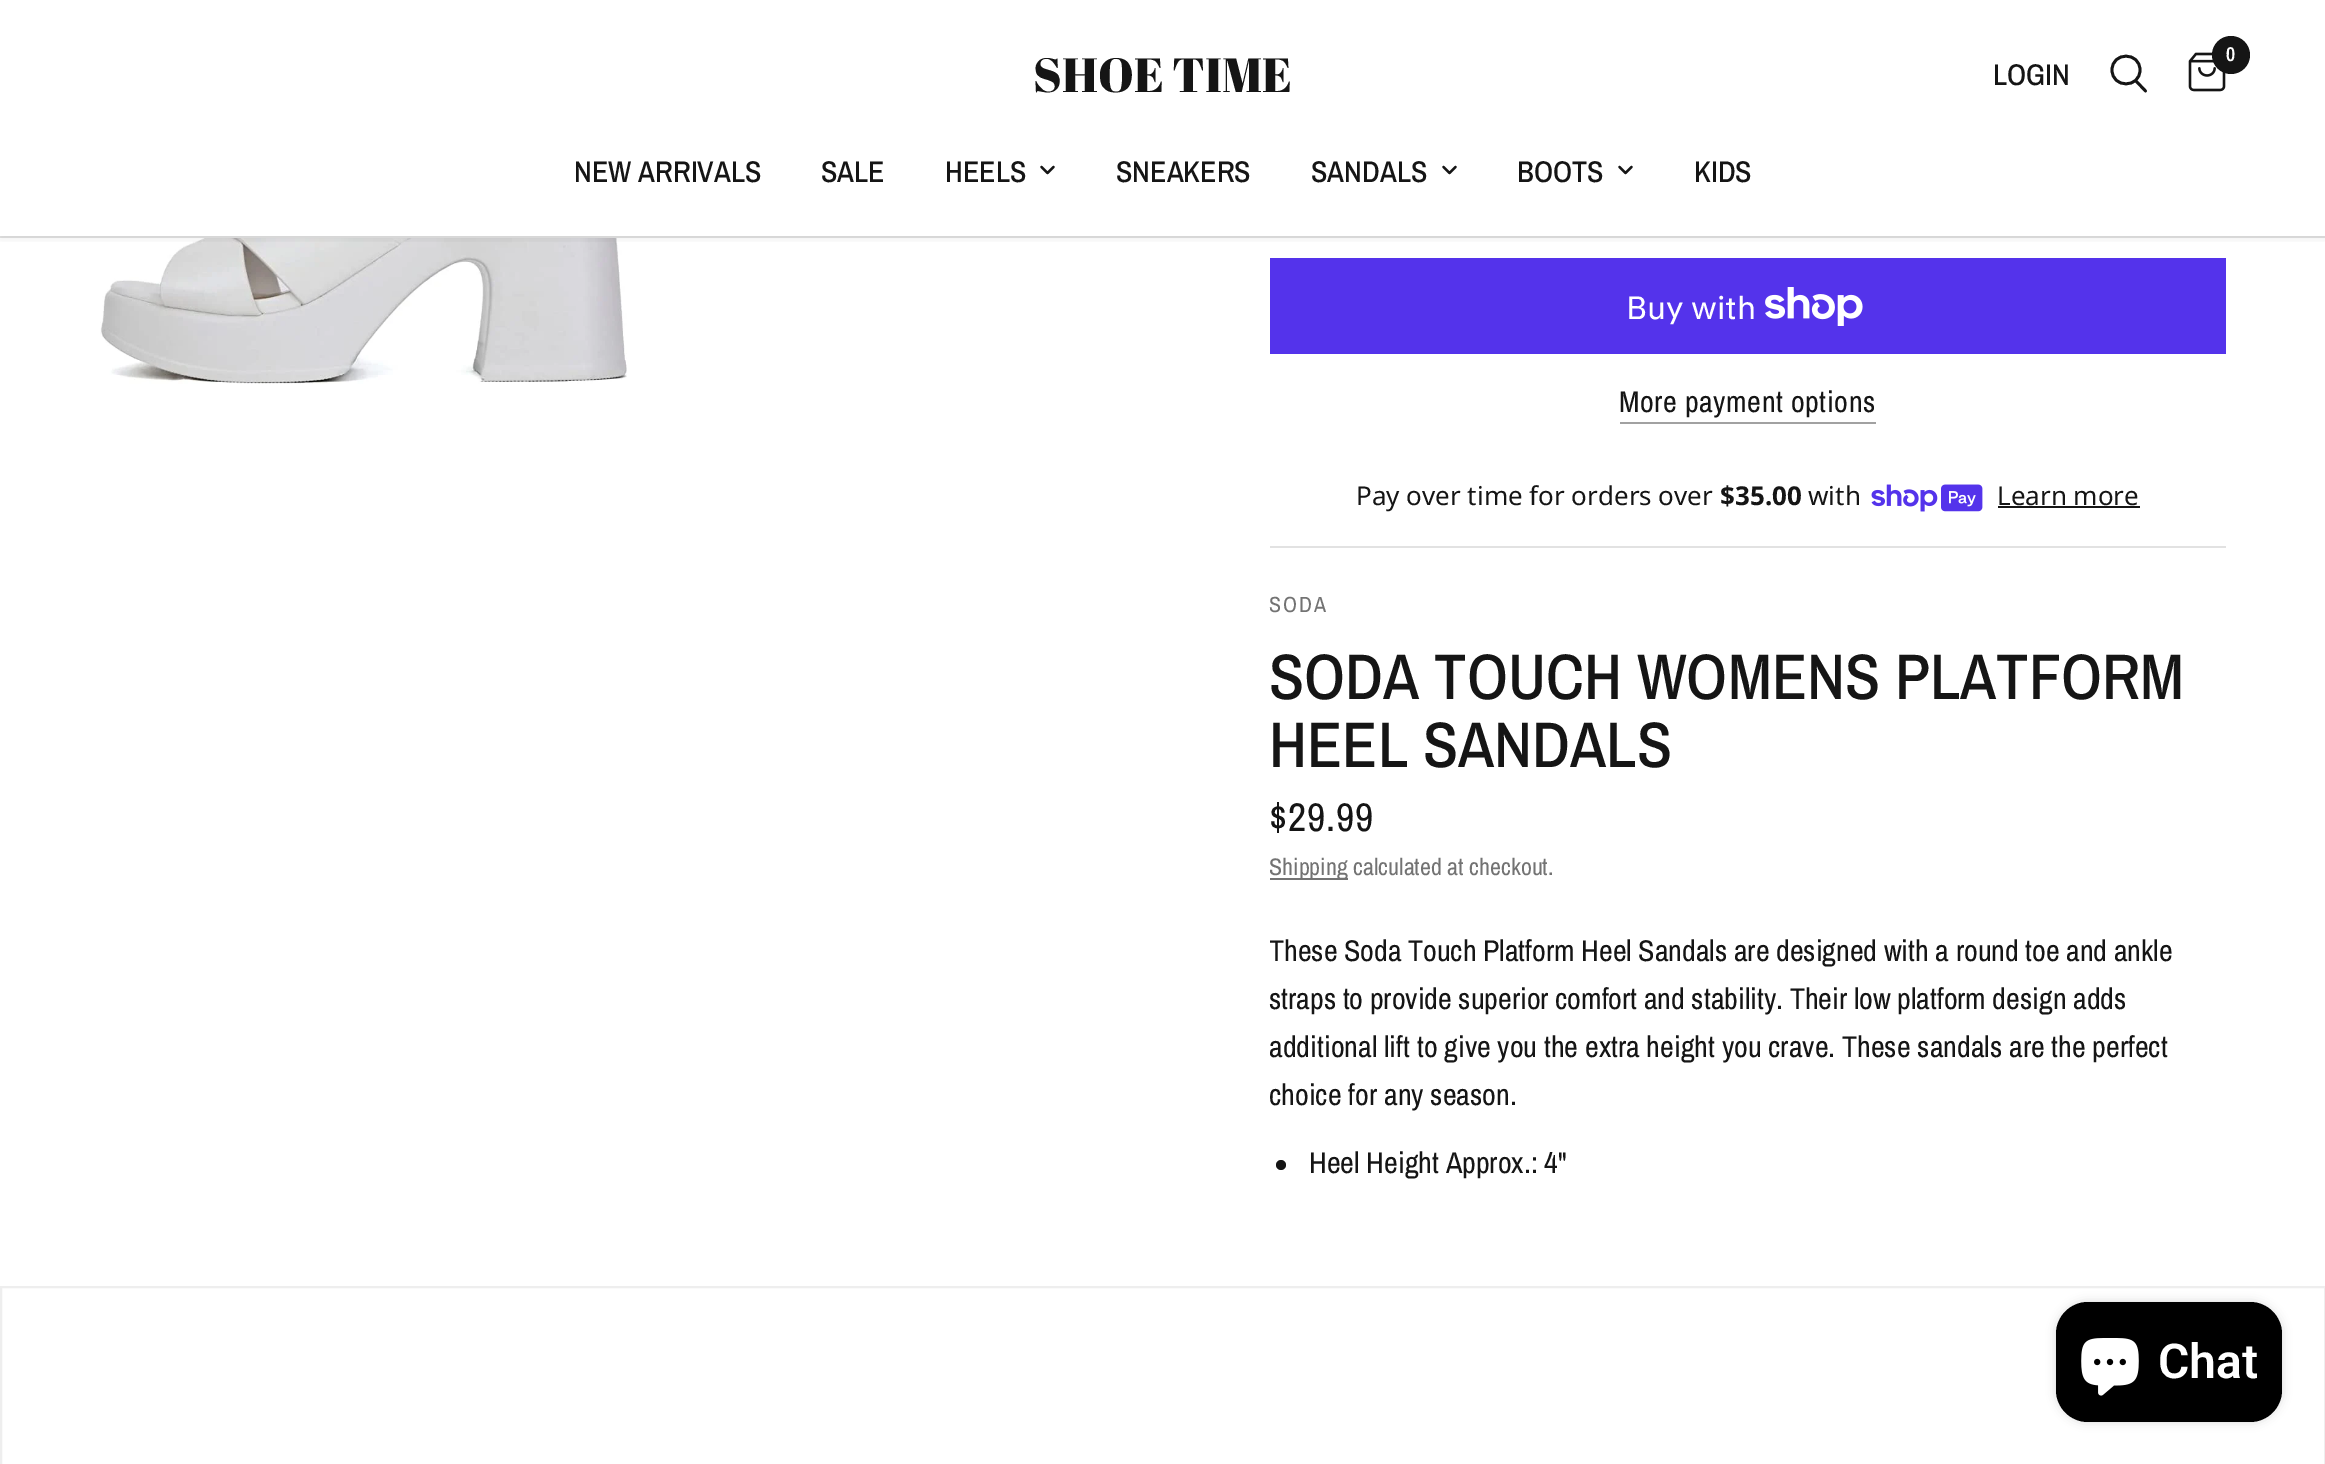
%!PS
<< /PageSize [2325 1464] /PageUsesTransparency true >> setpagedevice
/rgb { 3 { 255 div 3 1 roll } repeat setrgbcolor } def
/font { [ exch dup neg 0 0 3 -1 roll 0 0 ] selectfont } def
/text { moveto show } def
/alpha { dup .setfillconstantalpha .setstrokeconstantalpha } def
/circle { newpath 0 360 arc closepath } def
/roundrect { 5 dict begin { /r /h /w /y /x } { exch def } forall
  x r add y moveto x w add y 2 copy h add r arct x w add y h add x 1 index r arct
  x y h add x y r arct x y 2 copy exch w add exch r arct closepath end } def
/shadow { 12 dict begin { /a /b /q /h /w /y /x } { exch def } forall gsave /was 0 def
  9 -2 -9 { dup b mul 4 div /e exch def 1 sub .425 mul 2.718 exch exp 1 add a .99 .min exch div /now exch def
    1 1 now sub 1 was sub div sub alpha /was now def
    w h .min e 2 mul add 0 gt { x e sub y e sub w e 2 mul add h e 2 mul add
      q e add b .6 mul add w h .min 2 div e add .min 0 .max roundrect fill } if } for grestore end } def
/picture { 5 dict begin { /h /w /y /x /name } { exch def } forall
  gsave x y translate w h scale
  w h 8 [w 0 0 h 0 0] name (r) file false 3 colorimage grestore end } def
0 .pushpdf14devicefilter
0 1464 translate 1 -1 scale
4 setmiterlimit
255 255 255 rgb
0 0 2325 1464 rectfill
226 226 226 rgb
0 236 2325 2 rectfill
(img_02.rgb) 100 238 527 146 picture
gsave
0 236 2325 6 rectclip
0 0 0 rgb
0 4 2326 236 0 5 0.06 shadow
grestore
21 21 21 rgb
2.8 setlinewidth
1 setlinecap
1 setlinejoin
2136 81 moveto 9.5 10 rlineto 2140 70 moveto 0 18.5 -28 18.5 -28 0 rcurveto 0 -18.5 28 -18.5 28 0 rcurveto closepath stroke
(img_01.rgb) 2188 52 38 40 picture
2231 55 19 circle fill
2.2 setlinewidth
1053.5 167 moveto -6 6 rlineto -6 -6 rlineto stroke
1455.5 167 moveto -6 6 rlineto -6 -6 rlineto stroke
1631.5 167 moveto -6 6 rlineto -6 -6 rlineto stroke
84 51 235 rgb
1270 258 956 96 rectfill
(img_03.rgb) 1765 287 98 39 picture
161 161 161 rgb
1620 422 256 2 rectfill
226 226 226 rgb
1270 546 956 2 rectfill
(img_04.rgb) 1871 484 112 28 picture
21 21 21 rgb
1998 506 142 2 rectfill
115 115 115 rgb
1270 878 78 2 rectfill
21 21 21 rgb
1281 1165 5 circle fill
238 238 238 rgb
2 setlinewidth
0 setlinecap
0 setlinejoin
1 1287 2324 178 rectstroke
0 0 0 rgb
2056 1302 226 120 32 5 0.15 shadow
2056 1302 226 120 32 roundrect fill
(img_05.rgb) 2081 1338 58 58 picture
/AbrilFatface-Regular 48 font
21 21 21 rgb
(SHOE TIME) 1033 92 text
/ArchivoNarrow-Medium 30 font
(LOGIN) 1993 85 text
/ArchivoNarrow-SemiBold 20 font
255 255 255 rgb
(0) 2226 61 text
/ArchivoNarrow-Medium 30 font
21 21 21 rgb
(NEW ARRIVALS) 574 182 text
(SALE) 821 182 text
(HEELS) 945 182 text
(SNEAKERS) 1116 182 text
(SANDALS) 1311 182 text
(BOOTS) 1517 182 text
(KIDS) 1694 182 text
/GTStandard-Regular 32 font
255 255 255 rgb
(Buy with) 1626 319 text
/ArchivoNarrow-Regular 30 font
21 21 21 rgb
1619 412 moveto 0.6 0 (More payment options) ashow
/NotoSans-Regular 26 font
(Pay over time for orders over) 1356 505 text
/NotoSans-Bold 26 font
($35.00) 1720 505 text
/NotoSans-Regular 26 font
(with) 1808 505 text
(Learn more) 1997 505 text
/ArchivoNarrow-Regular 22 font
115 115 115 rgb
1269 612 moveto 2 0 (SODA) ashow
/ArchivoNarrow-Medium 64.4 font
21 21 21 rgb
(SODA TOUCH WOMENS PLATFORM) 1269 699 text
(HEEL SANDALS) 1269 767 text
/ArchivoNarrow-Regular 40 font
1269 831 moveto 0.75 0 ($29.99) ashow
/ArchivoNarrow-Regular 24 font
115 115 115 rgb
(Shipping calculated at checkout.) 1269 875 text
gsave
1270 928 956 310 rectclip
/ArchivoNarrow-Regular 30 font
21 21 21 rgb
1269 961 moveto -0.25 0 32 (These Soda Touch Platform Heel Sandals are designed with a round toe and ankle) widthshow
grestore
/ArchivoNarrow-Regular 30 font
21 21 21 rgb
1269 1009 moveto -0.25 0 32 (straps to provide superior comfort and stability. Their low platform design adds) widthshow
(additional lift to give you the extra height you crave. These sandals are the perfect) 1269 1057 text
(choice for any season.) 1269 1105 text
(Heel Height Approx.: 4") 1309 1173 text
/Roboto-SemiBold 48 font
255 255 255 rgb
(Chat) 2158 1378 text
.poppdf14devicefilter showpage
